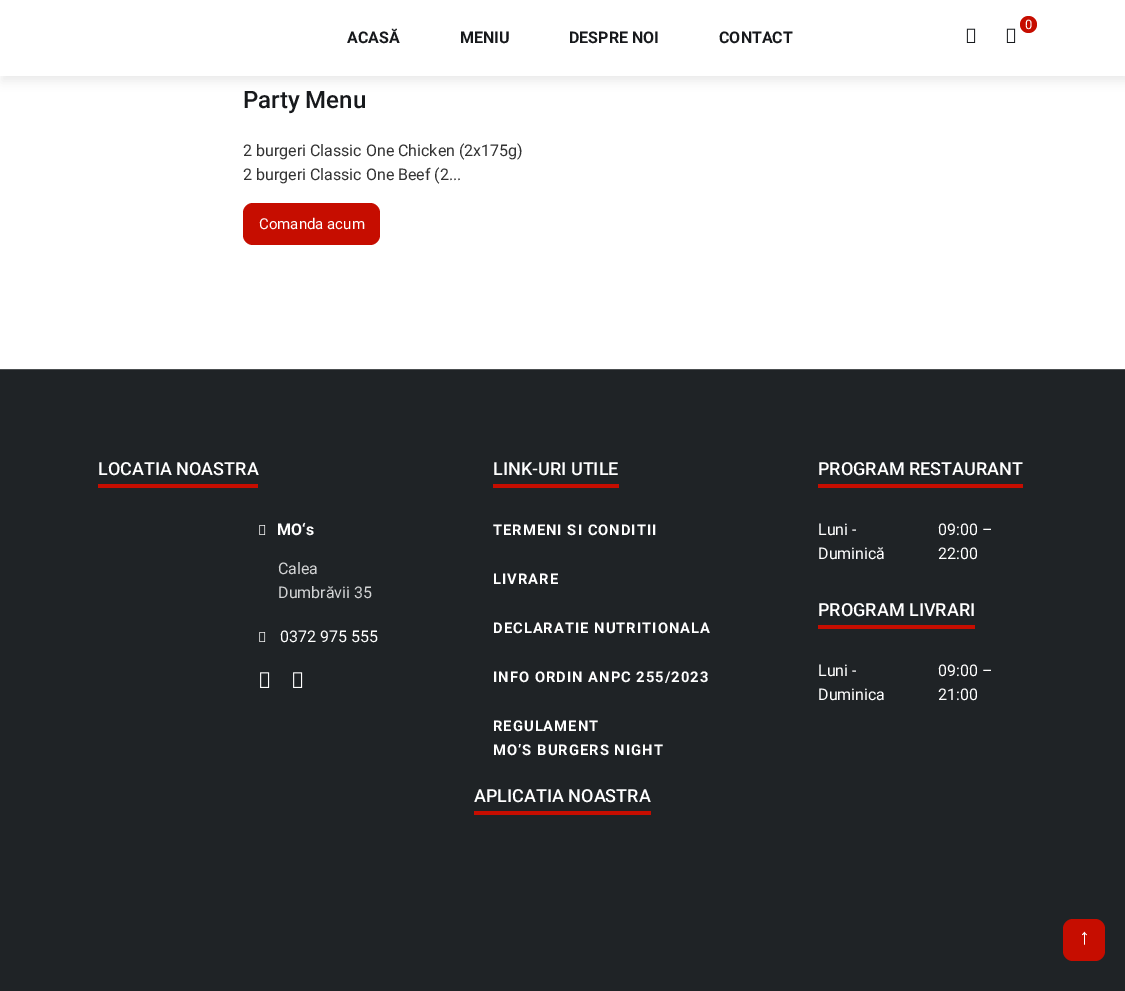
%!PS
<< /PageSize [1125 991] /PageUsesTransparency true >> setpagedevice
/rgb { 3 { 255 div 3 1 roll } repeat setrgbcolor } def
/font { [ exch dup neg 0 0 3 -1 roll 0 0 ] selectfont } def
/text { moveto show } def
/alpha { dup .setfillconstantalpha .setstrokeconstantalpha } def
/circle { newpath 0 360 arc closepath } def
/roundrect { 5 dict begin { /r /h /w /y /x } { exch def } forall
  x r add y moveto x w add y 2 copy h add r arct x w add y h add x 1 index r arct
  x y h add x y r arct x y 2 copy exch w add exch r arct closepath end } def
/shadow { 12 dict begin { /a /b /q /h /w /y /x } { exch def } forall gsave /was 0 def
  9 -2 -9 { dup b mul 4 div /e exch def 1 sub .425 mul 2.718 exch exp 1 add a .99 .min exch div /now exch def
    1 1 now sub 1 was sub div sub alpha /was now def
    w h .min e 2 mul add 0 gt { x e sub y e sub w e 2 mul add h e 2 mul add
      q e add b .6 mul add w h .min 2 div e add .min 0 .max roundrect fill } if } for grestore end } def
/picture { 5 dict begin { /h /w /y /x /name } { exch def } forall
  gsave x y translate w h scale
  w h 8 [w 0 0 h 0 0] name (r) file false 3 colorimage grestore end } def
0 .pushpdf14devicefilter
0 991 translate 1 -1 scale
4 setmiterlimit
255 255 255 rgb
0 0 1125 991 rectfill
0 0 0 rgb
2 5 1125 76 0 5 0.08 shadow
255 255 255 rgb
0 0 1125 76 rectfill
198 13 0 rgb
1028.5 24.5 8.5 circle fill
(img_01.rgb) 1006 28 10 15 picture
(img_01.rgb) 966 28 10 15 picture
243 203 137 42 10 roundrect fill
31 35 38 rgb
0 370 1125 621 rectfill
76 79 81 rgb
0 369 1125 1 rectfill
198 13 0 rgb
98 484 160 4 rectfill
(img_02.rgb) 259 525 7 10 picture
(img_02.rgb) 259 632 7 10 picture
(img_03.rgb) 260 672 10 16 picture
(img_03.rgb) 293 672 10 16 picture
493 484 126 4 rectfill
818 484 205 4 rectfill
818 625 157 4 rectfill
474 811 177 4 rectfill
1063 919 42 42 10 roundrect fill
/Roboto-Regular 13 font
255 255 255 rgb
(0) 1025 29 text
/Roboto-Bold 16 font
23 25 28 rgb
(ACASĂ) 347 43 text
(MENIU) 460 43 text
(DESPRE NOI) 569 43 text
(CONTACT) 719 43 text
/Roboto-Medium 24 font
(Party Menu) 243 108 text
/Roboto-Regular 16 font
51 51 51 rgb
(2 burgeri Classic One Chicken \(2x175g\)) 243 156 text
(2 burgeri Classic One Beef \(2...) 243 180 text
/Roboto-Regular 15 font
255 255 255 rgb
(Comanda acum) 259 229 text
/Roboto-Medium 18 font
(LOCATIA NOASTRA) 98 475 text
/Roboto-Bold 16 font
(MO‘s) 277 535 text
/Roboto-Regular 16 font
210 211 212 rgb
(Calea) 278 574 text
(Dumbrăvii 35) 278 598 text
255 255 255 rgb
(0372 975 555) 280 642 text
/Roboto-Medium 18 font
(LINK-URI UTILE) 493 475 text
/Roboto-Bold 14.75 font
493 535 moveto 1 0 (TERMENI SI CONDITII) ashow
493 584 moveto 1 0 (LIVRARE) ashow
493 633 moveto 1 0 (DECLARATIE NUTRITIONALA) ashow
493 682 moveto 1 0 (INFO ORDIN ANPC 255/2023) ashow
493 731 moveto 1 0 (REGULAMENT) ashow
493 755 moveto 1 0 (MO’S BURGERS NIGHT) ashow
/Roboto-Medium 18 font
(PROGRAM RESTAURANT) 818 475 text
/Roboto-Regular 16 font
(Luni -) 818 535 text
(Duminică) 818 559 text
(09:00 –) 938 535 text
(22:00) 938 559 text
/Roboto-Medium 18 font
(PROGRAM LIVRARI) 818 616 text
/Roboto-Regular 16 font
(Luni -) 818 676 text
(Duminica) 818 700 text
(09:00 –) 938 676 text
(21:00) 938 700 text
/Roboto-Medium 18 font
(APLICATIA NOASTRA) 474 802 text
/LiberationSans-Regular 22 font
(↑) 1079 944 text
.poppdf14devicefilter showpage
